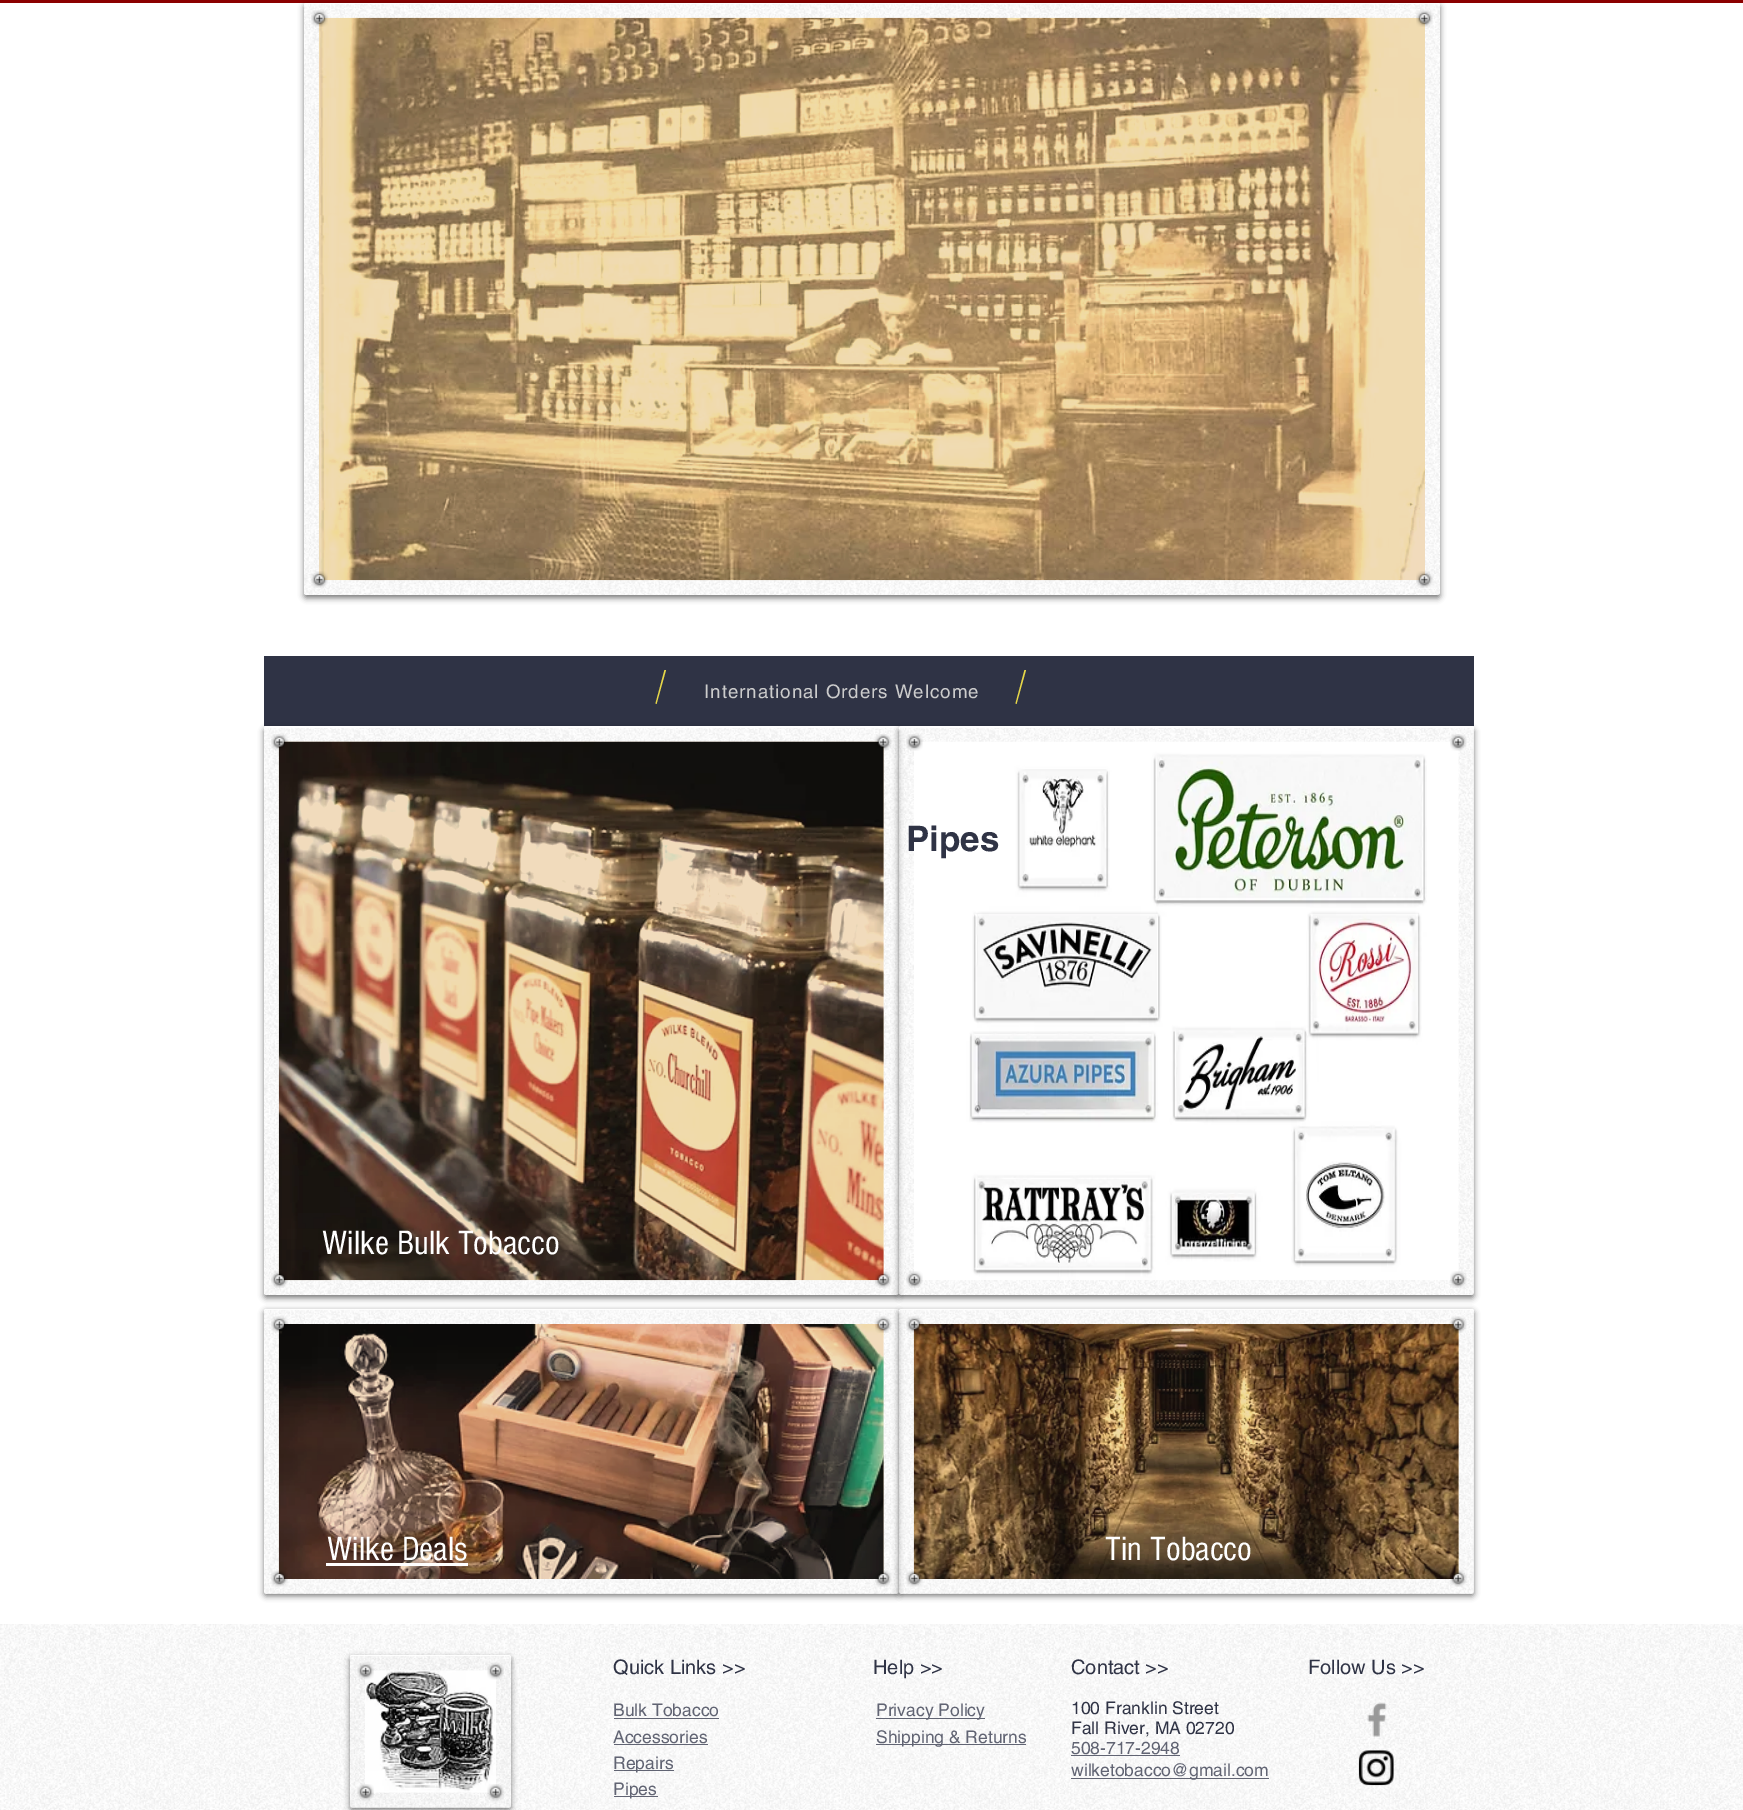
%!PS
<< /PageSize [1743 1810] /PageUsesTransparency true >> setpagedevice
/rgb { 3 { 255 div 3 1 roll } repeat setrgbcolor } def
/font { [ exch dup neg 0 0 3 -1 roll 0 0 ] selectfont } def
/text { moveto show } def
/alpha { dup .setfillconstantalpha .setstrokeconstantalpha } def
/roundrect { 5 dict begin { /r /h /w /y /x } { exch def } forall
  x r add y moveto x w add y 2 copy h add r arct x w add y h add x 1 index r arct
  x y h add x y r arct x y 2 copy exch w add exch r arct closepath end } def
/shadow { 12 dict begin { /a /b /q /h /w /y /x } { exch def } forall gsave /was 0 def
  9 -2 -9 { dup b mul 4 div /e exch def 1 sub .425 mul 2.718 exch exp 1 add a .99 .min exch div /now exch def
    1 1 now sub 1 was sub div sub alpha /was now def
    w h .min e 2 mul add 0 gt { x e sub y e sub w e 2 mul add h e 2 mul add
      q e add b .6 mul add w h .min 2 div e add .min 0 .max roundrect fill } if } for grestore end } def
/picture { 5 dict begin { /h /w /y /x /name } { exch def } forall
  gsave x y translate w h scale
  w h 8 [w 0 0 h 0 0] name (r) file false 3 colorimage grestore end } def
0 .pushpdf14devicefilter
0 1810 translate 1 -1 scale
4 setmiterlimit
255 255 255 rgb
0 0 1743 1810 rectfill
139 0 0 rgb
0 0 1743 3 rectfill
gsave
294 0 moveto 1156 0 rlineto 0 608 rlineto -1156 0 rlineto closepath 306.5 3 moveto 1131 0 rlineto 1.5 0 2.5 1 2.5 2.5 rcurveto 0 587 rlineto 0 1.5 -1 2.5 -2.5 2.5 rcurveto -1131 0 rlineto -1.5 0 -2.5 -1 -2.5 -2.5 rcurveto 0 -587 rlineto 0 -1.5 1 -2.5 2.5 -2.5 rcurveto closepath eoclip newpath
0 0 0 rgb
304 5 1136 593 2.5 3 0.53 shadow
grestore
0.5 alpha
255 255 255 rgb
304 3 1136 592 2.5 roundrect fill
1 alpha
(img_01.rgb) 304 3 1136 592 picture
0.92 alpha
306 4 moveto -1 0 -2 1 -2 2 rcurveto 0 -2 1 -3 2 -3 rcurveto 1132 0 rlineto 1 0 2 1 2 3 rcurveto 0 -1 -1 -2 -2 -2 rcurveto closepath fill
1 alpha
(img_04.rgb) 318 17 1107 564 picture
(img_02.rgb) 311 10 17 17 picture
(img_03.rgb) 1416 10 17 17 picture
(img_05.rgb) 311 571 17 17 picture
(img_06.rgb) 1416 571 17 17 picture
47 51 69 rgb
264 656 1210 70 rectfill
232 216 72 rgb
655.5 703.5 moveto 9 -33.5 rlineto 1.5 0 rlineto -9.5 34 rlineto closepath fill
1015.5 703.5 moveto 9 -33.5 rlineto 1.5 0 rlineto -9.5 34 rlineto closepath fill
gsave
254 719 moveto 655 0 rlineto 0 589 rlineto -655 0 rlineto closepath 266.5 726 moveto 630 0 rlineto 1.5 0 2.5 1 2.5 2.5 rcurveto 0 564 rlineto 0 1.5 -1 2.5 -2.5 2.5 rcurveto -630 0 rlineto -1.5 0 -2.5 -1 -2.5 -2.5 rcurveto 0 -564 rlineto 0 -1.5 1 -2.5 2.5 -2.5 rcurveto closepath eoclip newpath
0 0 0 rgb
264 729 635 569 2.5 3 0.53 shadow
grestore
0.5 alpha
255 255 255 rgb
264 726 635 569 2.5 roundrect fill
1 alpha
(img_07.rgb) 264 727 635 568 picture
0.92 alpha
266 728 moveto -1 0 -2 1 -2 2 rcurveto 0 -2 rlineto 0 -1 1 -2 2 -2 rcurveto 630 0 rlineto 2 0 3 1 3 2 rcurveto 0 2 rlineto 0 -1 -1 -2 -3 -2 rcurveto closepath fill
1 alpha
(img_10.rgb) 278 741 606 540 picture
(img_08.rgb) 271 734 17 17 picture
(img_09.rgb) 875 734 17 17 picture
(img_11.rgb) 271 1271 17 17 picture
(img_12.rgb) 875 1271 17 17 picture
gsave
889 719 moveto 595 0 rlineto 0 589 rlineto -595 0 rlineto closepath 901.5 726 moveto 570 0 rlineto 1.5 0 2.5 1 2.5 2.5 rcurveto 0 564 rlineto 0 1.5 -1 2.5 -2.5 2.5 rcurveto -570 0 rlineto -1.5 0 -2.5 -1 -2.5 -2.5 rcurveto 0 -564 rlineto 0 -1.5 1 -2.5 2.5 -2.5 rcurveto closepath eoclip newpath
0 0 0 rgb
899 729 575 569 2.5 3 0.53 shadow
grestore
0.5 alpha
899 726 575 569 2.5 roundrect fill
1 alpha
(img_13.rgb) 899 727 575 568 picture
0.92 alpha
901 728 moveto -1 0 -2 1 -2 2 rcurveto 0 -2 rlineto 0 -1 1 -2 3 -2 rcurveto 570 0 rlineto 1 0 2 1 2 2 rcurveto 0 2 rlineto 0 -1 -1 -2 -3 -2 rcurveto closepath fill
1 alpha
(img_16.rgb) 914 741 545 539 picture
(img_14.rgb) 906 734 17 17 picture
(img_15.rgb) 1450 734 17 17 picture
(img_17.rgb) 906 1271 17 17 picture
(img_18.rgb) 1450 1271 17 17 picture
gsave
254 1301 moveto 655 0 rlineto 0 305 rlineto -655 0 rlineto closepath 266.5 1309 moveto 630 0 rlineto 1.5 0 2.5 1 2.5 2.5 rcurveto 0 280 rlineto 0 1.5 -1 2.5 -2.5 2.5 rcurveto -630 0 rlineto -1.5 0 -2.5 -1 -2.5 -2.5 rcurveto 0 -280 rlineto 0 -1.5 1 -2.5 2.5 -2.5 rcurveto closepath eoclip newpath
0 0 0 rgb
264 1311 635 285 2.5 3 0.53 shadow
grestore
0.5 alpha
264 1309 635 285 2.5 roundrect fill
1 alpha
(img_19.rgb) 264 1309 635 285 picture
0.92 alpha
266 1310 moveto -1 0 -2 1 -2 2 rcurveto 0 -2 1 -3 2 -3 rcurveto 630 0 rlineto 2 0 3 1 3 3 rcurveto 0 -1 -1 -2 -3 -2 rcurveto closepath fill
1 alpha
(img_22.rgb) 278 1324 606 255 picture
(img_20.rgb) 271 1316 17 17 picture
(img_21.rgb) 875 1316 17 17 picture
(img_23.rgb) 271 1570 17 17 picture
(img_24.rgb) 875 1570 17 17 picture
gsave
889 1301 moveto 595 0 rlineto 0 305 rlineto -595 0 rlineto closepath 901.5 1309 moveto 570 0 rlineto 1.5 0 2.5 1 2.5 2.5 rcurveto 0 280 rlineto 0 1.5 -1 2.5 -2.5 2.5 rcurveto -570 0 rlineto -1.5 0 -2.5 -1 -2.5 -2.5 rcurveto 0 -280 rlineto 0 -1.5 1 -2.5 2.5 -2.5 rcurveto closepath eoclip newpath
0 0 0 rgb
899 1311 575 285 2.5 3 0.53 shadow
grestore
0.5 alpha
899 1309 575 285 2.5 roundrect fill
1 alpha
(img_25.rgb) 899 1309 575 285 picture
0.92 alpha
901 1310 moveto -1 0 -2 1 -2 2 rcurveto 0 -2 1 -3 3 -3 rcurveto 570 0 rlineto 1 0 2 1 2 3 rcurveto 0 -1 -1 -2 -3 -2 rcurveto closepath fill
1 alpha
(img_28.rgb) 913 1324 546 255 picture
(img_26.rgb) 906 1316 17 17 picture
(img_27.rgb) 1450 1316 17 17 picture
(img_29.rgb) 906 1570 17 17 picture
(img_30.rgb) 1450 1570 17 17 picture
326 1563 142 3 rectfill
(img_31.rgb) 0 1624 1743 186 picture
gsave
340 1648 moveto 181 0 rlineto 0 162 rlineto -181 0 rlineto closepath 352.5 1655 moveto 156 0 rlineto 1.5 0 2.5 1 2.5 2.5 rcurveto 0 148 rlineto 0 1.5 -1 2.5 -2.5 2.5 rcurveto -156 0 rlineto -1.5 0 -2.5 -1 -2.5 -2.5 rcurveto 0 -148 rlineto 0 -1.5 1 -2.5 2.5 -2.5 rcurveto closepath eoclip newpath
0 0 0 rgb
350 1658 161 152 2.5 3 0.53 shadow
grestore
0.5 alpha
350 1655 161 153 2.5 roundrect fill
1 alpha
(img_32.rgb) 350 1655 161 153 picture
0.92 alpha
352 1656 moveto -1 0 -2 1 -2 3 rcurveto 0 -2 0 -4 2 -4 rcurveto 156 0 rlineto 3 0 3 2 3 4 rcurveto 0 -2 -1 -3 -2 -3 rcurveto closepath fill
1 alpha
(img_35.rgb) 365 1670 131 123 picture
(img_33.rgb) 357 1662 17 18 picture
(img_34.rgb) 487 1662 17 18 picture
(img_36.rgb) 357 1784 17 17 picture
(img_37.rgb) 487 1784 17 17 picture
97 100 115 rgb
614 1718 105 1 rectfill
614 1744 94 1 rectfill
614 1770 60 1 rectfill
614 1796 44 1 rectfill
876 1718 109 1 rectfill
876 1744 150 1 rectfill
1071 1755 109 1 rectfill
1071 1778 198 1 rectfill
(img_38.rgb) 1367 1702 20 35 picture
(img_39.rgb) 1358 1750 36 36 picture
/helvetica-Regular 18.75 font
204 204 204 rgb
704 698 moveto 0.95 0 (International Orders Welcome) ashow
/helvetica-Bold 35 font
47 51 69 rgb
(Pipes) 906 851 text
/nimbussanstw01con-Regular 35 font
255 255 255 rgb
(Wilke Bulk Tobacco) 322 1254 text
(Wilke Deals) 327 1560 text
(Tin Tobacco) 1105 1560 text
/helvetica-Regular 20 font
47 51 69 rgb
(Quick Links >>) 613 1674 text
(Help >>) 873 1674 text
(Contact >>) 1071 1674 text
(Follow Us >>) 1308 1674 text
/helvetica-Regular 17.5 font
97 100 115 rgb
(Bulk Tobacco) 613 1716 text
(Accessories) 613 1743 text
(Repairs) 613 1769 text
(Pipes) 613 1795 text
(Privacy Policy) 876 1716 text
(Shipping & Returns) 876 1743 text
47 51 69 rgb
(100 Franklin Street) 1071 1714 text
(Fall River, MA 02720) 1071 1734 text
97 100 115 rgb
(508-717-2948) 1071 1754 text
(wilketobacco@gmail.com) 1071 1776 text
.poppdf14devicefilter showpage
